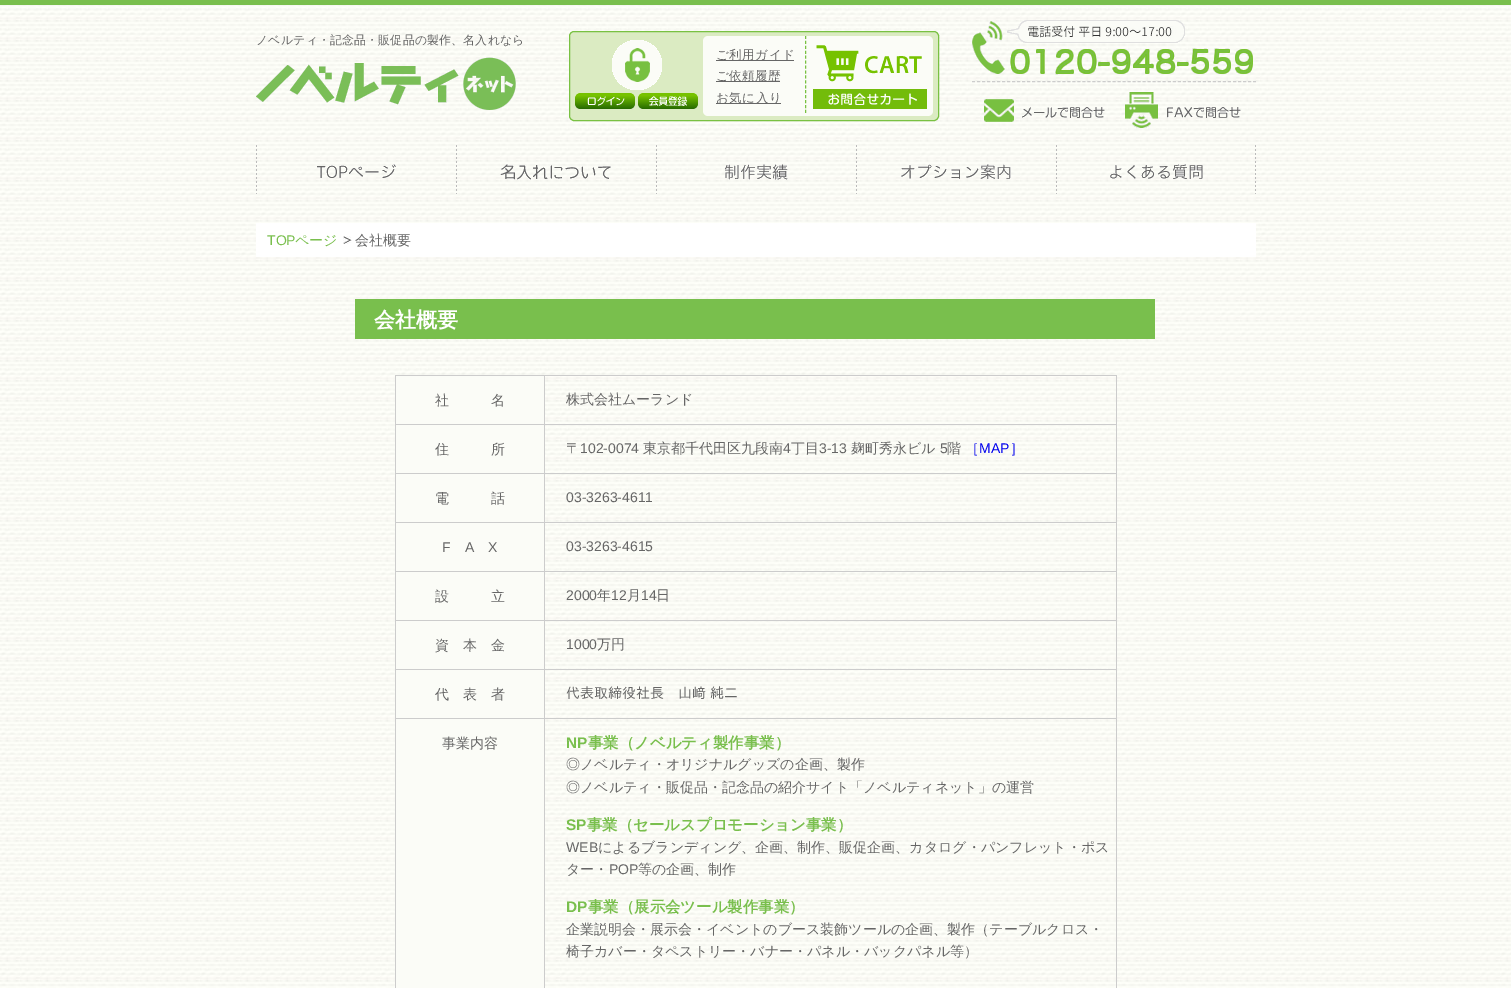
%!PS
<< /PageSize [1511 988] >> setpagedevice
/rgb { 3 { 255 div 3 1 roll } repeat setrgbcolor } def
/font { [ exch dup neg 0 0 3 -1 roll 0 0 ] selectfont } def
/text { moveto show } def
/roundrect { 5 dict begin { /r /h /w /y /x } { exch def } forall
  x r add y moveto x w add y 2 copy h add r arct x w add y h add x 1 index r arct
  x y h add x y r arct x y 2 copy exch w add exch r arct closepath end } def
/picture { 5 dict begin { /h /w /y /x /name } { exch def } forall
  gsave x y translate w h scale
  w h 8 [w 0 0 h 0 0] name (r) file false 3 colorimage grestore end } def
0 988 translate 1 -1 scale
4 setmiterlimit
255 255 255 rgb
0 0 1511 988 rectfill
(img_01.rgb) 0 5 1511 983 picture
121 191 77 rgb
0 0 1511 5 rectfill
(img_02.rgb) 256 57 260 53 picture
204 204 204 rgb
[3 2.02] 0 setdash
972 81.5 moveto 284 0 rlineto stroke
(img_03.rgb) 972 20 281 55 picture
(img_04.rgb) 984 99 121 23 picture
(img_05.rgb) 1125 92 116 36 picture
219 235 194 rgb
569.5 31.5 369 89 4.5 roundrect gsave fill grestore
121 193 66 rgb
[] 0 setdash
stroke
(img_06.rgb) 612 40 50 50 picture
(img_07.rgb) 575 93 60 16 picture
(img_08.rgb) 638 93 60 16 picture
251 252 247 rgb
703 36 230 80 5 roundrect fill
102 102 102 rgb
716 60 78 1 rectfill
716 81 64 1 rectfill
716 103 65 1 rectfill
121 193 66 rgb
[3 1.93] 0 setdash
805.5 36 moveto 0 77 rlineto stroke
(img_09.rgb) 813 45 114 64 picture
(img_10.rgb) 256 145 201 49 picture
(img_11.rgb) 500 145 157 49 picture
(img_12.rgb) 725 145 132 49 picture
(img_13.rgb) 901 145 156 49 picture
(img_14.rgb) 1110 145 146 49 picture
255 255 255 rgb
256 223 1000 34 rectfill
(img_15.rgb) 343 236 9 8 picture
121 191 77 rgb
355 299 800 40 rectfill
204 204 204 rgb
395 375 722 1 rectfill
395 375 1 613 rectfill
251 252 247 rgb
396 376 148 48 rectfill
204 204 204 rgb
544 376 1 612 rectfill
396 424 149 1 rectfill
1116 376 1 612 rectfill
545 424 572 1 rectfill
251 252 247 rgb
396 425 148 48 rectfill
204 204 204 rgb
396 473 721 1 rectfill
251 252 247 rgb
396 474 148 48 rectfill
204 204 204 rgb
396 522 721 1 rectfill
251 252 247 rgb
396 523 148 48 rectfill
204 204 204 rgb
396 571 721 1 rectfill
251 252 247 rgb
396 572 148 48 rectfill
204 204 204 rgb
396 620 721 1 rectfill
251 252 247 rgb
396 621 148 48 rectfill
204 204 204 rgb
396 669 721 1 rectfill
251 252 247 rgb
396 670 148 48 rectfill
204 204 204 rgb
396 718 721 1 rectfill
251 252 247 rgb
396 719 148 269 rectfill
/WenQuanYiZenHei-Medium 11.9 font
102 102 102 rgb
256 44 moveto 0.2 0 (ノベルティ・記念品・販促品の製作、名入れなら) ashow
/WenQuanYiZenHei-Medium 12.5 font
716 59 moveto 0.5 0 (ご利用ガイド) ashow
716 80 moveto 0.5 0 (ご依頼履歴) ashow
716 102 moveto 0.5 0 (お気に入り) ashow
/LiberationSans-Regular 14 font
121 191 77 rgb
(TOP) 267 245 text
/WenQuanYiZenHei-Medium 14 font
(ページ) 295 245 text
102 102 102 rgb
(会社概要) 355 245 text
/WenQuanYiZenHei-Bold 21 font
255 255 255 rgb
(会社概要) 374 327 text
/WenQuanYiZenHei-Medium 14 font
102 102 102 rgb
(社　　　名) 435 405 text
(株式会社ムーランド) 566 404 text
(住　　　所) 435 454 text
(〒) 566 453 text
/LiberationSans-Regular 14 font
(102-0074) 580 453 text
/WenQuanYiZenHei-Medium 14 font
(東京都千代田区九段南) 643 453 text
/LiberationSans-Regular 14 font
(4) 783 453 text
/WenQuanYiZenHei-Medium 14 font
(丁目) 791 453 text
/LiberationSans-Regular 14 font
(3-13) 819 453 text
/WenQuanYiZenHei-Medium 14 font
(麹町秀永ビル) 851 453 text
/LiberationSans-Regular 14 font
(5) 940 453 text
/WenQuanYiZenHei-Medium 14 font
(階) 947 453 text
0 0 238 rgb
(［) 965 453 text
/LiberationSans-Regular 14 font
(MAP) 979 453 text
/WenQuanYiZenHei-Medium 14 font
(］) 1010 453 text
102 102 102 rgb
(電　　　話) 435 503 text
/LiberationSans-Regular 14 font
(03-3263-4611) 566 502 text
(F) 442 552 text
(A) 465 552 text
(X) 488 552 text
(03-3263-4615) 566 551 text
/WenQuanYiZenHei-Medium 14 font
(設　　　立) 435 601 text
/LiberationSans-Regular 14 font
(2000) 566 600 text
/WenQuanYiZenHei-Medium 14 font
(年) 597 600 text
/LiberationSans-Regular 14 font
(12) 611 600 text
/WenQuanYiZenHei-Medium 14 font
(月) 627 600 text
/LiberationSans-Regular 14 font
(14) 641 600 text
/WenQuanYiZenHei-Medium 14 font
(日) 656 600 text
(資　本　金) 435 650 text
/LiberationSans-Regular 14 font
(1000) 566 649 text
/WenQuanYiZenHei-Medium 14 font
(万円) 597 649 text
(代　表　者) 435 699 text
/IPAPGothic-Regular 14 font
(代表取締役社長　山﨑 純二) 566 698 text
/WenQuanYiZenHei-Medium 14 font
(事業内容) 442 748 text
/LiberationSans-Bold 15.4 font
121 191 77 rgb
(NP) 566 748 text
/WenQuanYiZenHei-Bold 15.4 font
(事業（ノベルティ製作事業）) 588 748 text
/WenQuanYiZenHei-Medium 14 font
102 102 102 rgb
(◎ノベルティ・オリジナルグッズの企画、製作) 566 769 text
(◎ノベルティ・販促品・記念品の紹介サイト「ノベルティネット」の運営) 566 792 text
/LiberationSans-Bold 15.4 font
121 191 77 rgb
(SP) 566 830 text
/WenQuanYiZenHei-Bold 15.4 font
(事業（セールスプロモーション事業）) 587 830 text
/LiberationSans-Regular 14 font
102 102 102 rgb
(WEB) 566 852 text
/WenQuanYiZenHei-Medium 14 font
(によるブランディング、企画、制作、販促企画、カタログ・パンフレット・ポス) 598 852 text
(ター・) 566 874 text
/LiberationSans-Regular 14 font
(POP) 609 874 text
/WenQuanYiZenHei-Medium 14 font
(等の企画、制作) 638 874 text
/LiberationSans-Bold 15.4 font
121 191 77 rgb
(DP) 566 912 text
/WenQuanYiZenHei-Bold 15.4 font
(事業（展示会ツール製作事業）) 588 912 text
/WenQuanYiZenHei-Medium 14 font
102 102 102 rgb
(企業説明会・展示会・イベントのブース装飾ツールの企画、製作（テーブルクロス・) 566 934 text
(椅子カバー・タペストリー・バナー・パネル・バックパネル等）) 566 956 text
showpage
